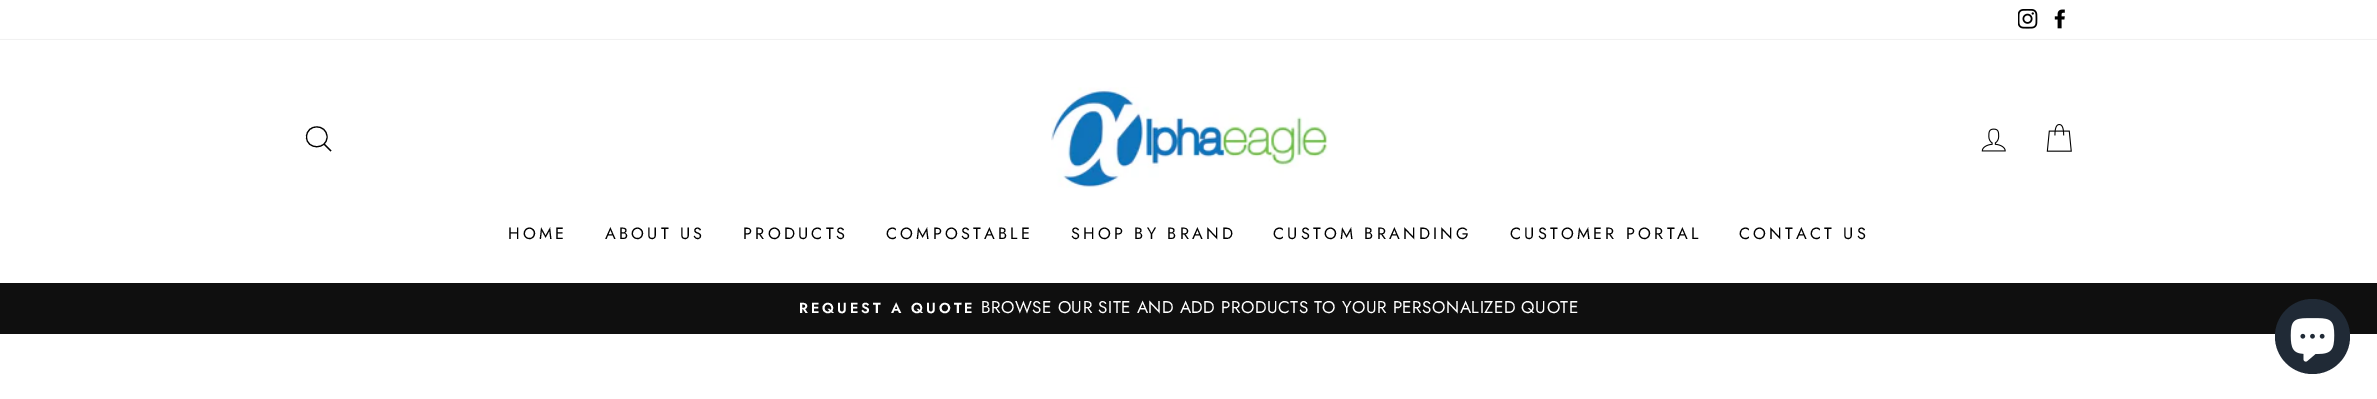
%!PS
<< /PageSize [2377 399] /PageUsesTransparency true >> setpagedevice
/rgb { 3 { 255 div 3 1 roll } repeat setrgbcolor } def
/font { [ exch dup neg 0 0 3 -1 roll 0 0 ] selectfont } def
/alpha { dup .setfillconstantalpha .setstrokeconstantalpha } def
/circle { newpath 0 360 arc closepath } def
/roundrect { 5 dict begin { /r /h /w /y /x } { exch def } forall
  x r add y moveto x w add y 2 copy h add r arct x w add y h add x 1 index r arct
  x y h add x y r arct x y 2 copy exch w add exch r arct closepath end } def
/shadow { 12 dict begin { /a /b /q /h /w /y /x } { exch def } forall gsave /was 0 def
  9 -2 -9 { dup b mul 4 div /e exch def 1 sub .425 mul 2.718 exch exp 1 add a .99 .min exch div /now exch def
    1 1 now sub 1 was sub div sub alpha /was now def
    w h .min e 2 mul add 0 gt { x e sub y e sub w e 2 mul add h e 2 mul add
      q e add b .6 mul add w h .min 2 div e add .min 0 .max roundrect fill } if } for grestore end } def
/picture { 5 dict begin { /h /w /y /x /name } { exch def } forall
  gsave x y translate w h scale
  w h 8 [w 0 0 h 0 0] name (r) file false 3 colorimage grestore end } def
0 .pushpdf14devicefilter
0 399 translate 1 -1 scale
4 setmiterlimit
255 255 255 rgb
0 0 2377 399 rectfill
(img_01.rgb) 2018 9 20 20 picture
(img_02.rgb) 2054 9 11 20 picture
0 0 0 rgb
0 40 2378 243 0 0.5 0.2 shadow
255 255 255 rgb
0 40 2377 243 rectfill
0 0 0 rgb
1.1 setlinewidth
327 137 moveto 0 13 -20.5 13 -20.5 0 rcurveto 0 -13.5 20.5 -13.5 20.5 0 rcurveto closepath 331 151 moveto -7 -7 rlineto stroke
(img_03.rgb) 1051 87 277 101 picture
(img_04.rgb) 1981 128 25 24 picture
(img_05.rgb) 2046 124 26 28 picture
15 15 15 rgb
0 283 2377 51 rectfill
32 42 54 rgb
2312.5 336.5 37.5 circle fill
(img_06.rgb) 2290 318 45 44 picture
/Jost-Regular 16.25 font
0 0 0 rgb
508 239 moveto 3.25 0 (HOME) ashow
605 239 moveto 3.25 0 (ABOUT US) ashow
743 239 moveto 3.25 0 (PRODUCTS) ashow
886 239 moveto 3.25 0 (COMPOSTABLE) ashow
1071 239 moveto 3.25 0 (SHOP BY BRAND) ashow
1273 239 moveto 3.25 0 (CUSTOM BRANDING) ashow
1510 239 moveto 3.25 0 (CUSTOMER PORTAL) ashow
1739 239 moveto 3.25 0 (CONTACT US) ashow
/Jost-SemiBold 14.5 font
255 255 255 rgb
799 313 moveto 2.9 0 (REQUEST A QUOTE) ashow
/Jost-Regular 17 font
981 313 moveto 0.5 0 (BROWSE OUR SITE AND ADD PRODUCTS TO YOUR PERSONALIZED QUOTE) ashow
.poppdf14devicefilter showpage
